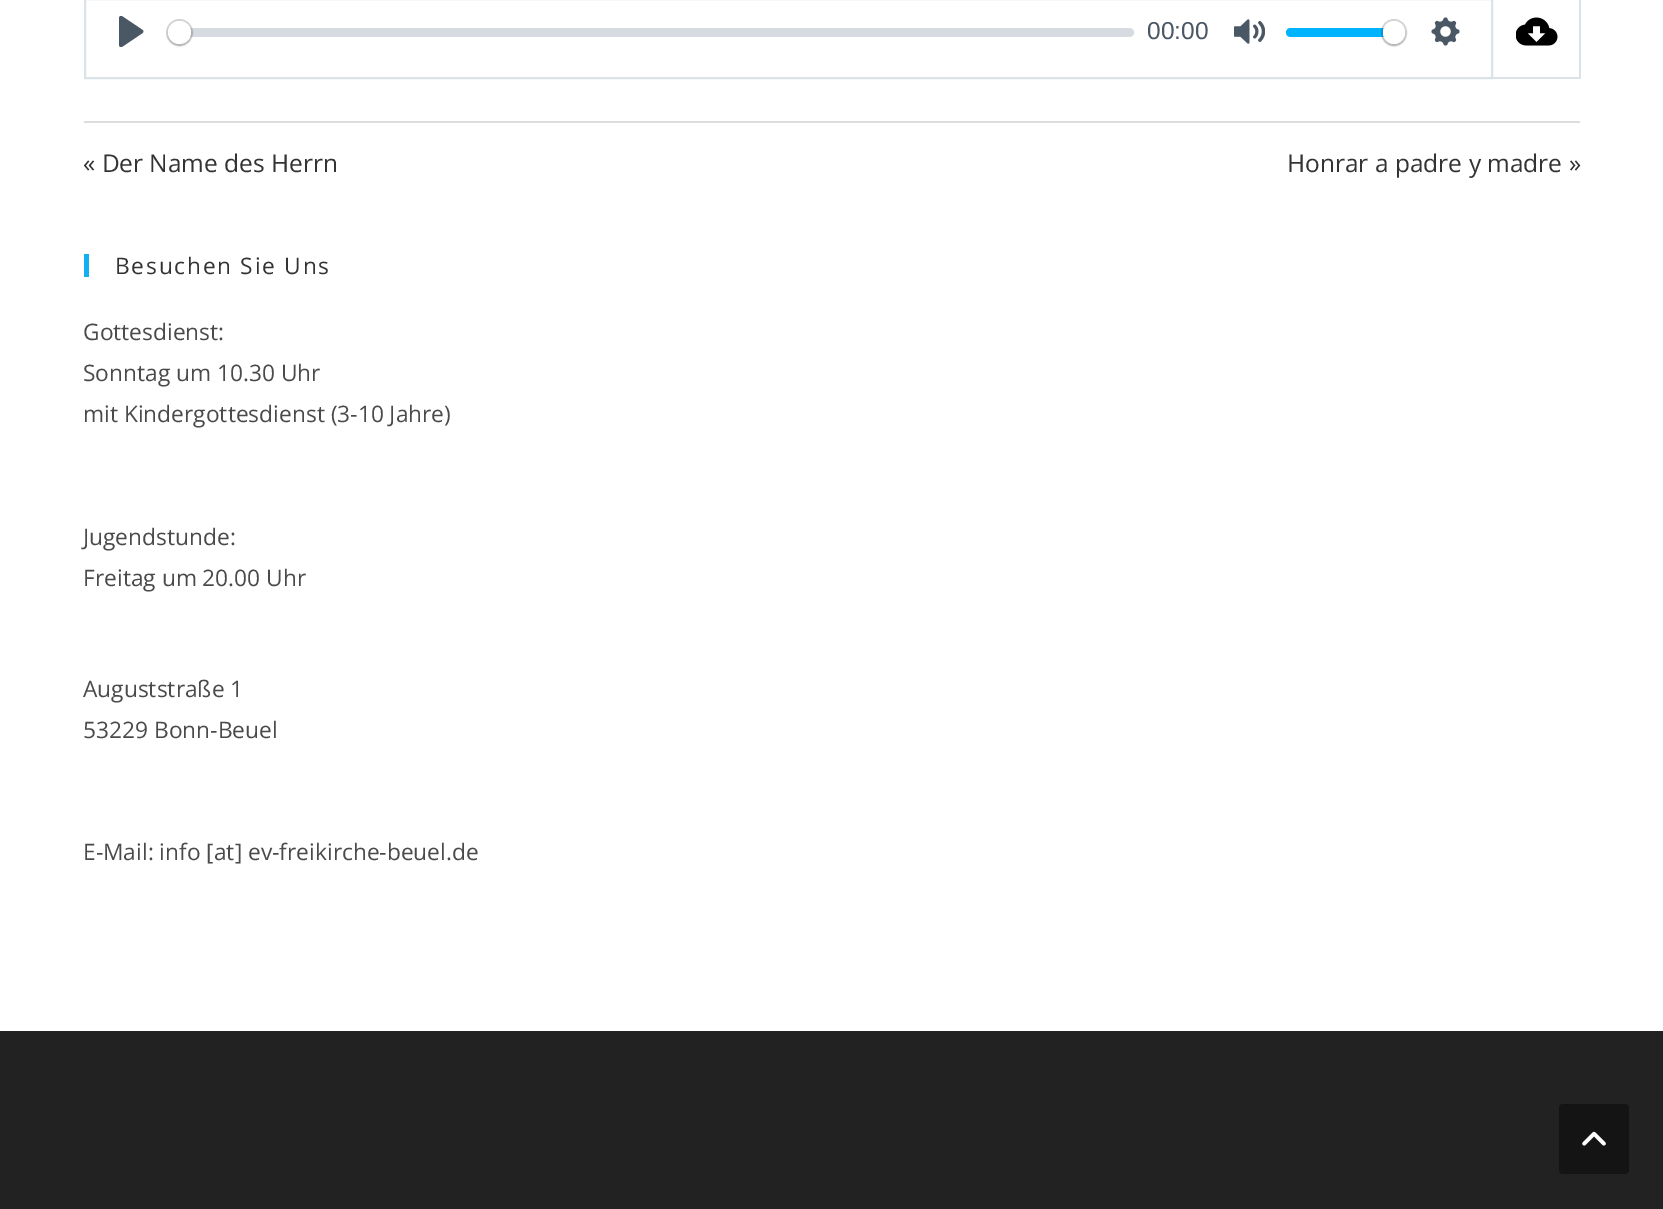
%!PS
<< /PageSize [1663 1209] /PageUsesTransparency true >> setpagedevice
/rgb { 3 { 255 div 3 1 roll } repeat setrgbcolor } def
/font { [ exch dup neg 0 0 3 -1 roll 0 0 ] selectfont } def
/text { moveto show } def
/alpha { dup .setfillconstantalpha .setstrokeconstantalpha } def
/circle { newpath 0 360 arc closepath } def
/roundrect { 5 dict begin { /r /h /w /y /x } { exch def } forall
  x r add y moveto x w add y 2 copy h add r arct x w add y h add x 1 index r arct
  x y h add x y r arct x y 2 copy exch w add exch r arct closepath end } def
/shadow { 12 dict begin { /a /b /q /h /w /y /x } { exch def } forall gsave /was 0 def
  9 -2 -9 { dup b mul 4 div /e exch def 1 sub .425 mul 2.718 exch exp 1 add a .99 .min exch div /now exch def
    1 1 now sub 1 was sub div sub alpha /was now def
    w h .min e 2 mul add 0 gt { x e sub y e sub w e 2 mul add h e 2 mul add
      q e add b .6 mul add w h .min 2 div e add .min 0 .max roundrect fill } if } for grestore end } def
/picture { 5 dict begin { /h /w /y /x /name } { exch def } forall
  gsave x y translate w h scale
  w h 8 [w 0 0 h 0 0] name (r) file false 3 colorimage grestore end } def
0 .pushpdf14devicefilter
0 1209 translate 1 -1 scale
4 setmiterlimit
255 255 255 rgb
0 0 1663 1209 rectfill
219 227 232 rgb
2 setlinewidth
85 -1 1407 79 rectstroke
(img_01.rgb) 119 16 25 31 picture
0.66 alpha
193 201 209 rgb
168 28 966 9 4.5 roundrect fill
0.2 alpha
35 41 47 rgb
179.5 32.5 12.5 circle stroke
1 alpha
0 0 0 rgb
168 23 23 23 11.5 1 0.15 shadow
255 255 255 rgb
179.5 32.5 11.5 circle fill
(img_02.rgb) 1234 19 31 25 picture
0 179 255 rgb
1286 28 119 9 4.5 roundrect fill
0.2 alpha
35 41 47 rgb
1382 20 24 25 12 roundrect stroke
1 alpha
0 0 0 rgb
1383 23 22 23 11 1 0.15 shadow
255 255 255 rgb
1383 21 22 23 11 roundrect fill
(img_03.rgb) 1431 17 29 29 picture
219 227 232 rgb
1579 0 2 79 rectfill
1493 77 87 2 rectfill
(img_04.rgb) 1516 17 42 29 picture
221 221 221 rgb
84 121 1496 2 rectfill
19 175 240 rgb
84 254 5 23 rectfill
34 34 34 rgb
0 1031 1663 178 rectfill
20 20 20 rgb
1559 1104 70 70 4 roundrect fill
(img_05.rgb) 1582 1131 24 15 picture
/LiberationSans-Regular 24.5 font
74 87 100 rgb
(00:00) 1147 39 text
/OpenSans-Regular 24.5 font
51 51 51 rgb
(« Der Name des Herrn) 83 172 text
(Honrar a padre y madre ») 1287 172 text
/OpenSans-Regular 22.75 font
115 274 moveto 1.75 0 (Besuchen Sie Uns) ashow
74 74 74 rgb
(Gottesdienst:) 83 340 text
(Sonntag um 10.30 Uhr) 83 381 text
(mit Kindergottesdienst \(3-10 Jahre\)) 83 422 text
(Jugendstunde:) 83 545 text
(Freitag um 20.00 Uhr) 83 586 text
(Auguststraße 1) 83 697 text
(53229 Bonn-Beuel) 83 738 text
(E-Mail: info [at] ev-freikirche-beuel.de) 83 860 text
.poppdf14devicefilter showpage
